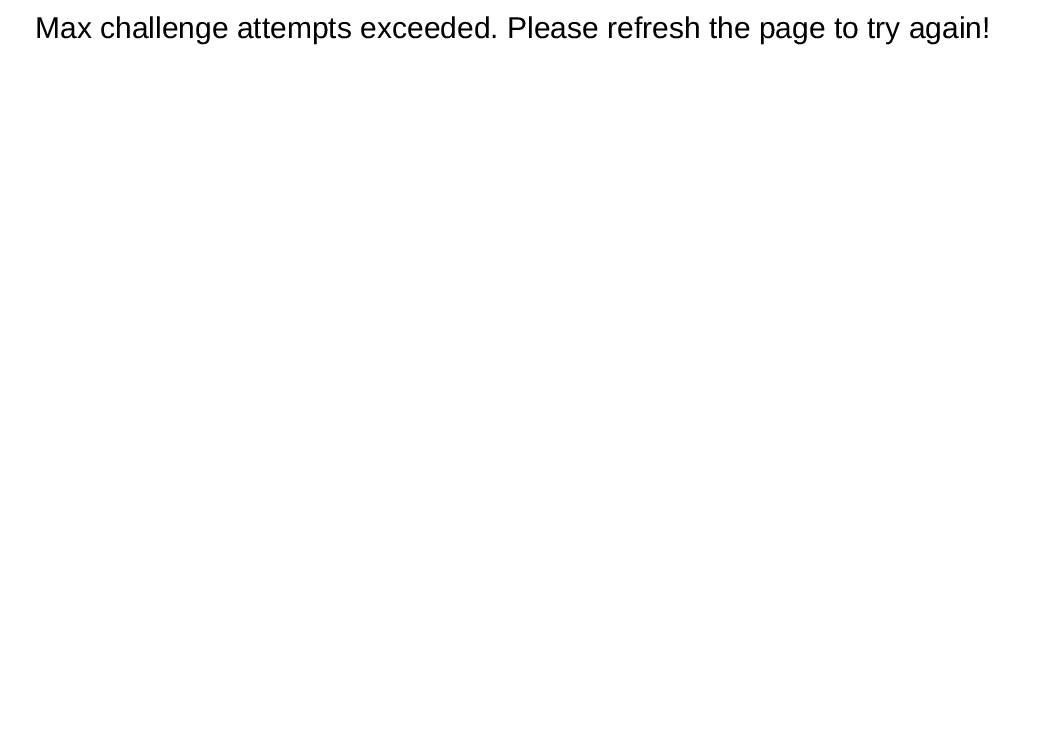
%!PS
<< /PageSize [1054 745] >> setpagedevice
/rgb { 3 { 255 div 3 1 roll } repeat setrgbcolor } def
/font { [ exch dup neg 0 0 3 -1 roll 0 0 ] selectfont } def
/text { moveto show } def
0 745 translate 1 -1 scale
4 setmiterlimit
255 255 255 rgb
0 0 1054 745 rectfill
/LiberationSans-Regular 30 font
0 0 0 rgb
(Max challenge attempts exceeded. Please refresh the page to try again!) 35 38 text
showpage
